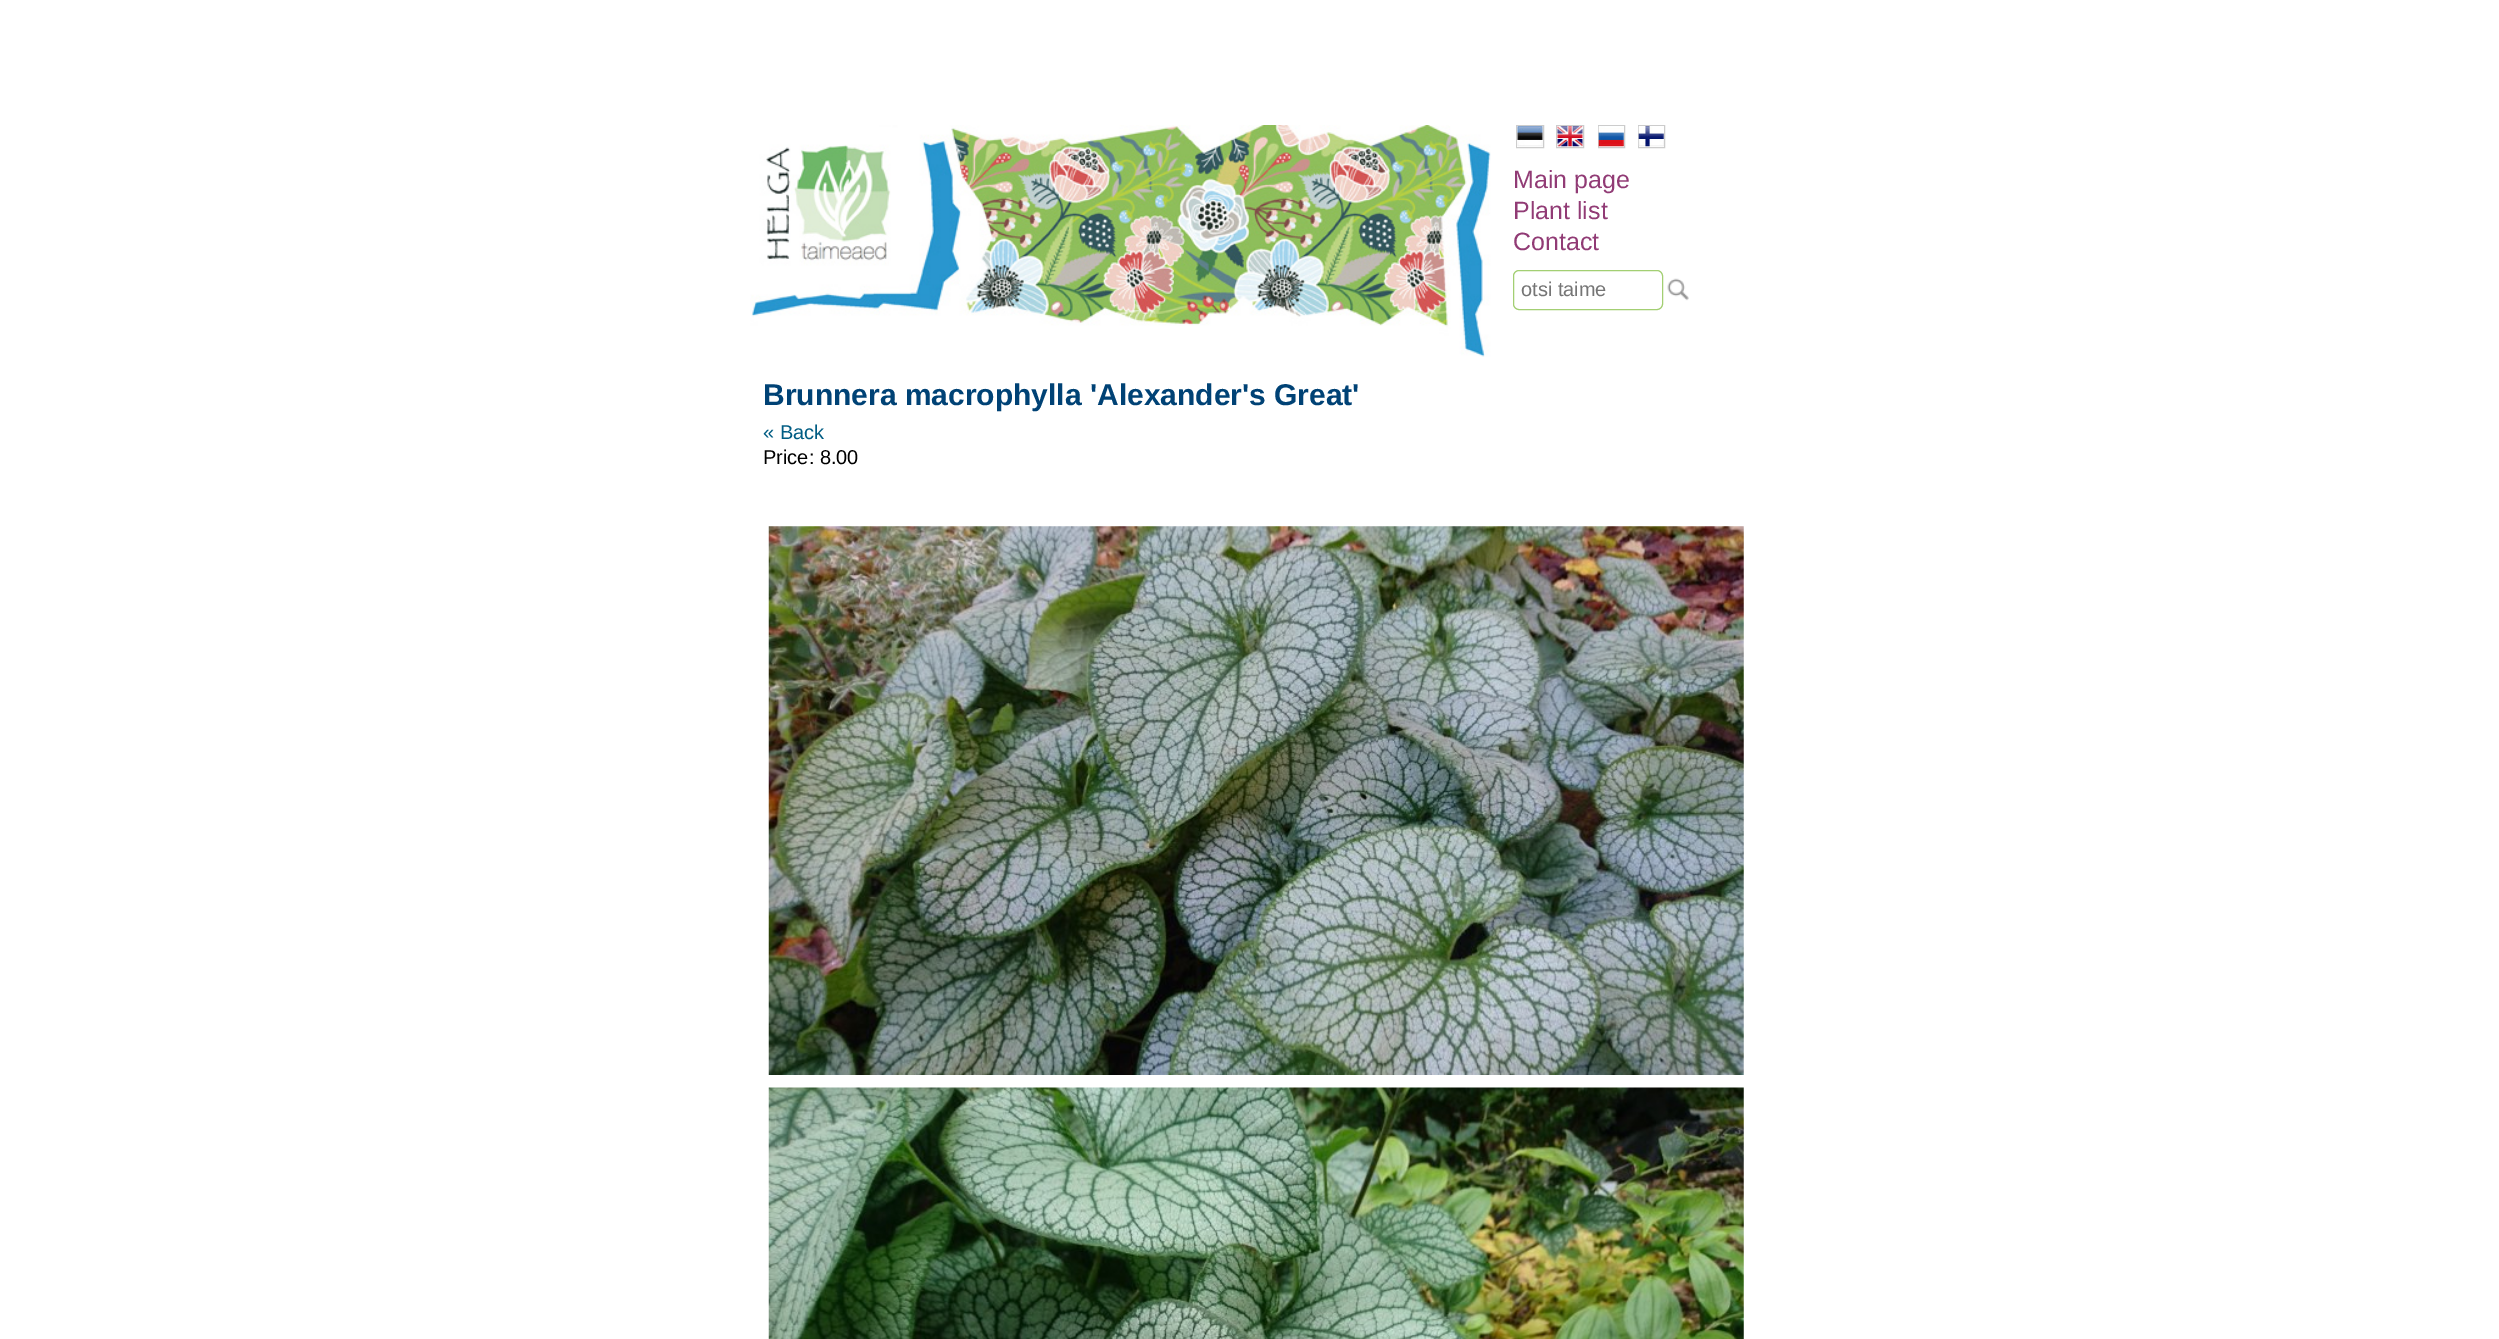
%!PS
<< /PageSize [2499 1339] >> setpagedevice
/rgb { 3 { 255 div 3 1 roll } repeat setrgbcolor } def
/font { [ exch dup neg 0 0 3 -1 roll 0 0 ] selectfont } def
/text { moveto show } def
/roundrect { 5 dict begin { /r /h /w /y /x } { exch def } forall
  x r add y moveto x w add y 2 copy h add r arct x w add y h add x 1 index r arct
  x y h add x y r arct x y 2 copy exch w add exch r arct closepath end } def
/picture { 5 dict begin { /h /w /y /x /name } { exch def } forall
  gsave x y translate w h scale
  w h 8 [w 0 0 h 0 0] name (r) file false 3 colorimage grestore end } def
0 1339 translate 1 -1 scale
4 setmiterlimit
255 255 255 rgb
0 0 2499 1339 rectfill
(img_01.rgb) 750 125 741 232 picture
204 204 204 rgb
1516.5 125.5 27 22 rectstroke
(img_02.rgb) 1517 126 26 21 picture
1556.5 125.5 27 22 rectstroke
(img_03.rgb) 1557 126 26 21 picture
1598.5 125.5 26 22 rectstroke
(img_04.rgb) 1598 126 26 21 picture
1638.5 125.5 26 22 rectstroke
(img_05.rgb) 1638 126 26 21 picture
163 207 115 rgb
1513.5 270.5 149 39 5.5 roundrect stroke
(img_06.rgb) 1667 278 22 23 picture
(img_07.rgb) 768 526 976 549 picture
(img_08.rgb) 768 1087 976 252 picture
/LiberationSans-Regular 25 font
145 59 117 rgb
(Main page) 1513 188 text
(Plant list) 1513 219 text
(Contact) 1513 250 text
/LiberationSans-Regular 20 font
117 117 117 rgb
(otsi taime) 1521 296 text
/LiberationSans-Bold 30 font
0 66 117 rgb
(Brunnera macrophylla 'Alexander's Great') 763 405 text
/LiberationSans-Regular 20 font
0 92 131 rgb
(« Back) 763 439 text
0 0 0 rgb
(Price: 8.00) 763 464 text
showpage
